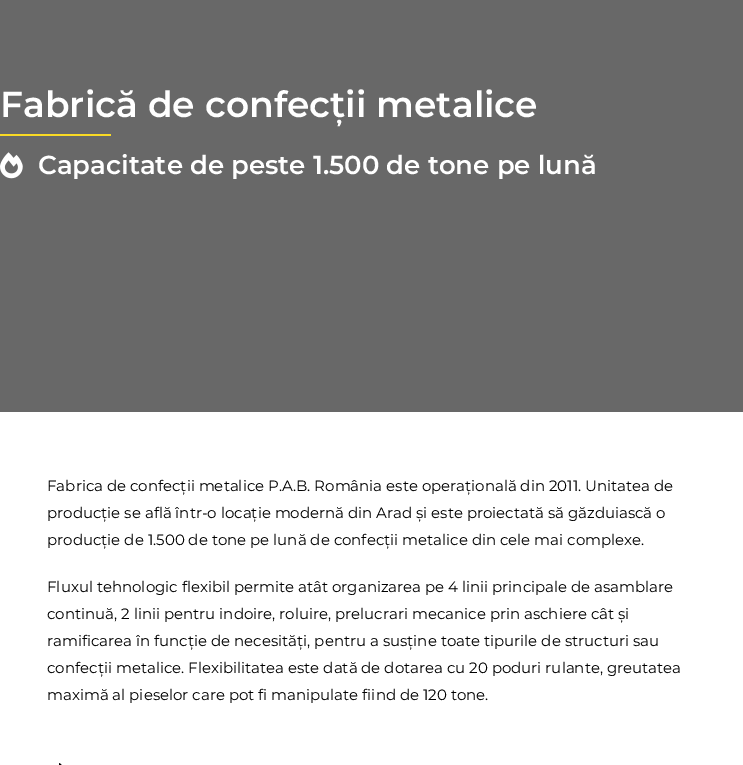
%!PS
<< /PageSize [743 765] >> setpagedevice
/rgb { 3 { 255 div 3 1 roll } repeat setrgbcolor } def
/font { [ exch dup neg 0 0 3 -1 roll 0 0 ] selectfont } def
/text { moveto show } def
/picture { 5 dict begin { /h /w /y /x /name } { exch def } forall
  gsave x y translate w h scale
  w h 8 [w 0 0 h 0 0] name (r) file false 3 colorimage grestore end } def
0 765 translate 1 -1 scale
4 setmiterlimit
255 255 255 rgb
0 0 743 765 rectfill
gsave 0 0 moveto 743 0 rlineto 0 412 rlineto -743 0 rlineto closepath clip newpath
<< /ShadingType 2 /ColorSpace /DeviceRGB /Coords [371 -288 372 412] /Extend [true true] /Function << /FunctionType 3 /Domain [0 1] /Functions [<< /FunctionType 2 /Domain [0 1] /C0 [1 1 1] /C1 [0.408 0.408 0.408] /N 1 >> << /FunctionType 2 /Domain [0 1] /C0 [0.408 0.408 0.408] /C1 [0.408 0.408 0.408] /N 1 >>] /Bounds [0.2] /Encode [0 1 0 1] >> >> shfill grestore
249 218 37 rgb
0 134 111 2 rectfill
(img_01.rgb) 0 152 23 27 picture
(img_02.rgb) 59 763 3 2 picture
/Montserrat-SemiBold 36 font
255 255 255 rgb
(Fabrică de confecții metalice) 0 117 text
/Montserrat-SemiBold 26 font
(Capacitate de peste 1.500 de tone pe lună) 38 174 text
/Montserrat-Regular 15 font
0 0 0 rgb
(Fabrica de confecții metalice P.A.B. România este operațională din 2011. Unitatea de) 47 491 text
(producție se află într-o locație modernă din Arad și este proiectată să găzduiască o) 47 518 text
(producție de 1.500 de tone pe lună de confecții metalice din cele mai complexe.) 47 545 text
(Fluxul tehnologic flexibil permite atât organizarea pe 4 linii principale de asamblare) 47 592 text
(continuă, 2 linii pentru indoire, roluire, prelucrari mecanice prin aschiere cât și) 47 619 text
(ramificarea în funcție de necesități, pentru a susține toate tipurile de structuri sau) 47 646 text
(confecții metalice. Flexibilitatea este dată de dotarea cu 20 poduri rulante, greutatea) 47 673 text
(maximă al pieselor care pot fi manipulate fiind de 120 tone.) 47 700 text
showpage
